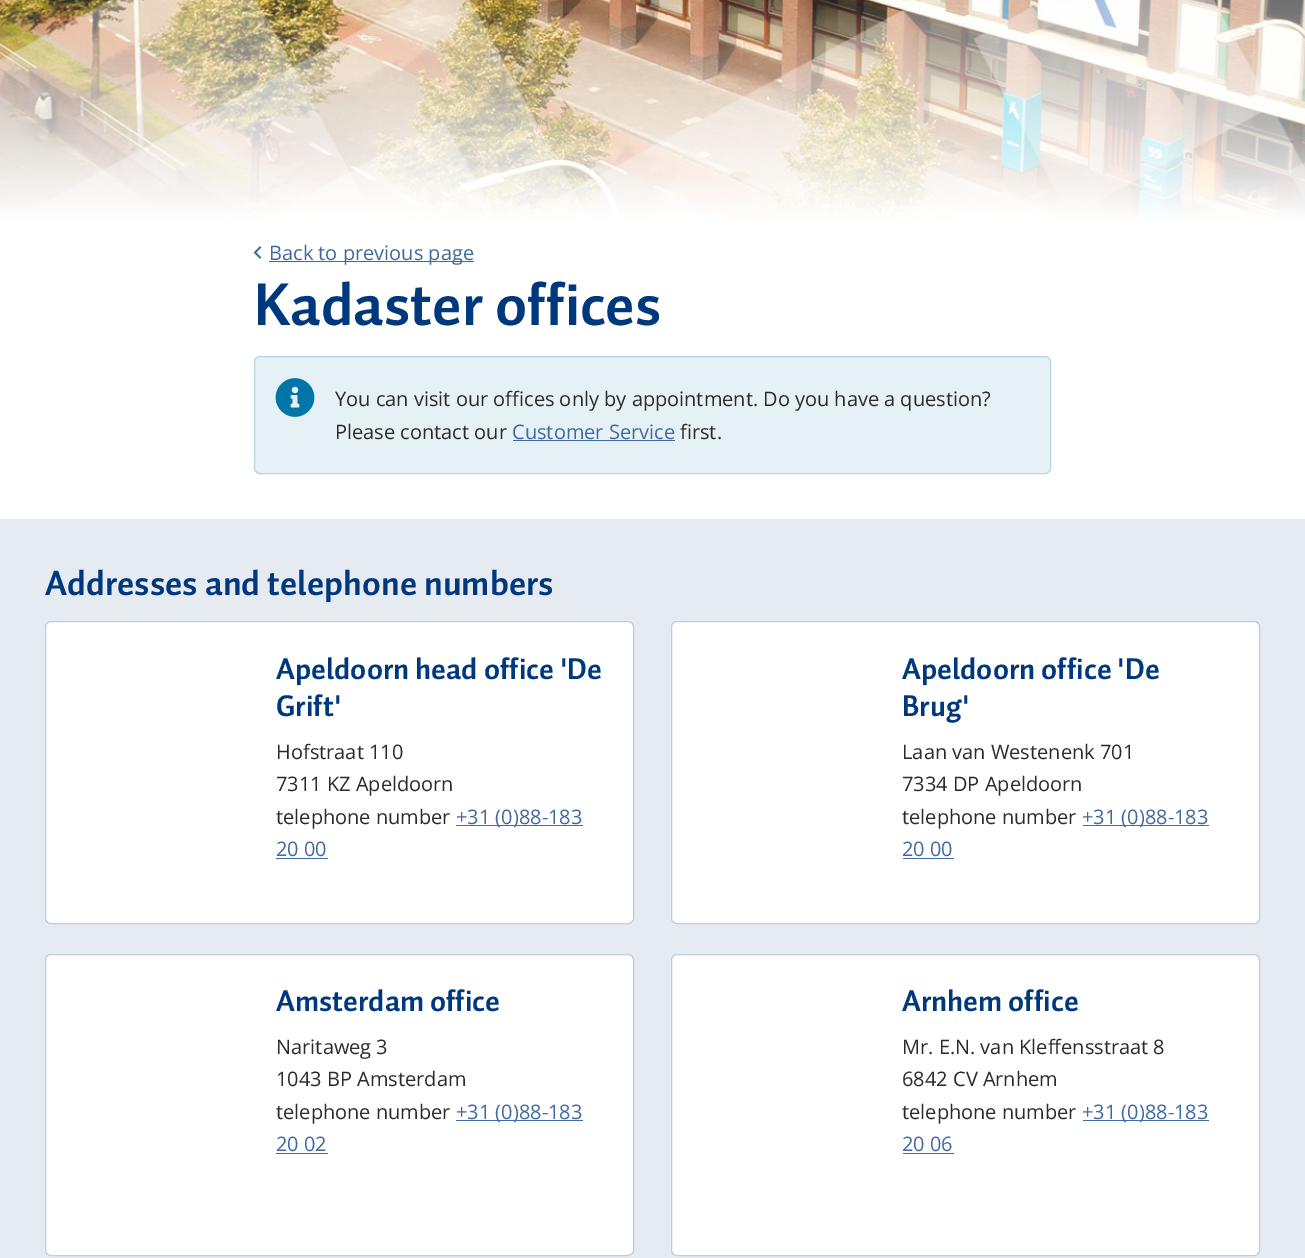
%!PS
<< /PageSize [1305 1258] >> setpagedevice
/rgb { 3 { 255 div 3 1 roll } repeat setrgbcolor } def
/font { [ exch dup neg 0 0 3 -1 roll 0 0 ] selectfont } def
/text { moveto show } def
/roundrect { 5 dict begin { /r /h /w /y /x } { exch def } forall
  x r add y moveto x w add y 2 copy h add r arct x w add y h add x 1 index r arct
  x y h add x y r arct x y 2 copy exch w add exch r arct closepath end } def
/picture { 5 dict begin { /h /w /y /x /name } { exch def } forall
  gsave x y translate w h scale
  w h 8 [w 0 0 h 0 0] name (r) file false 3 colorimage grestore end } def
0 1258 translate 1 -1 scale
4 setmiterlimit
255 255 255 rgb
0 0 1305 1258 rectfill
(img_01.rgb) 0 0 1305 220 picture
(img_02.rgb) 0 0 1305 236 picture
(img_03.rgb) 253 246 9 13 picture
64 106 158 rgb
269 261 205 1 rectfill
230 241 246 rgb
254.5 356.5 796 117 5.5 roundrect gsave fill grestore
179 214 229 rgb
stroke
(img_04.rgb) 275 378 40 39 picture
64 106 158 rgb
513 440 162 1 rectfill
230 235 242 rgb
0 519 1305 739 rectfill
255 255 255 rgb
45.5 621.5 588 302 5.5 roundrect gsave fill grestore
191 205 223 rgb
stroke
64 106 158 rgb
456 825 127 1 rectfill
276 858 52 1 rectfill
255 255 255 rgb
671.5 621.5 588 302 5.5 roundrect gsave fill grestore
191 205 223 rgb
stroke
64 106 158 rgb
1083 825 126 1 rectfill
903 858 51 1 rectfill
255 255 255 rgb
45.5 954.5 588 301 5.5 roundrect gsave fill grestore
191 205 223 rgb
stroke
64 106 158 rgb
456 1120 127 1 rectfill
276 1153 52 1 rectfill
255 255 255 rgb
671.5 954.5 588 301 5.5 roundrect gsave fill grestore
191 205 223 rgb
stroke
64 106 158 rgb
1083 1120 126 1 rectfill
903 1153 51 1 rectfill
/OpenSans-Regular 20 font
(Back to previous page) 269 260 text
/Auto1-Bold 60 font
0 56 125 rgb
(Kadaster offices) 254 325 text
/OpenSans-Regular 20 font
43 43 43 rgb
(You can visit our offices only by appointment. Do you have a question?) 335 406 text
(Please contact our) 335 439 text
64 106 158 rgb
(Customer Service) 512 439 text
43 43 43 rgb
(first.) 680 439 text
/Auto1-Bold 35 font
0 56 125 rgb
(Addresses and telephone numbers) 45 595 text
/Auto1-Bold 30 font
(Apeldoorn head office 'De) 276 679 text
(Grift') 276 716 text
/OpenSans-Regular 20 font
43 43 43 rgb
(Hofstraat 110) 276 759 text
(7311 KZ Apeldoorn) 276 791 text
(telephone number) 276 824 text
64 106 158 rgb
(+31 \(0\)88-183) 456 824 text
(20 00) 276 856 text
/Auto1-Bold 30 font
0 56 125 rgb
(Apeldoorn office 'De) 902 679 text
(Brug') 902 716 text
/OpenSans-Regular 20 font
43 43 43 rgb
(Laan van Westenenk 701) 902 759 text
(7334 DP Apeldoorn) 902 791 text
(telephone number) 902 824 text
64 106 158 rgb
(+31 \(0\)88-183) 1082 824 text
(20 00) 902 856 text
/Auto1-Bold 30 font
0 56 125 rgb
(Amsterdam office) 276 1011 text
/OpenSans-Regular 20 font
43 43 43 rgb
(Naritaweg 3) 276 1054 text
(1043 BP Amsterdam) 276 1086 text
(telephone number) 276 1119 text
64 106 158 rgb
(+31 \(0\)88-183) 456 1119 text
(20 02) 276 1151 text
/Auto1-Bold 30 font
0 56 125 rgb
(Arnhem office) 902 1011 text
/OpenSans-Regular 20 font
43 43 43 rgb
(Mr. E.N. van Kleffensstraat 8) 902 1054 text
(6842 CV Arnhem) 902 1086 text
(telephone number) 902 1119 text
64 106 158 rgb
(+31 \(0\)88-183) 1082 1119 text
(20 06) 902 1151 text
showpage
